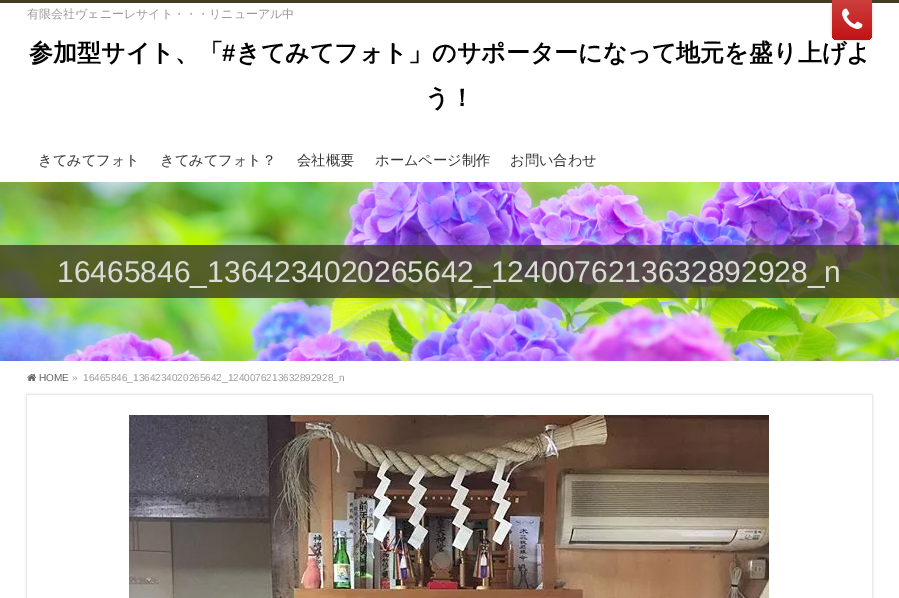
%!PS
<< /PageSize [899 598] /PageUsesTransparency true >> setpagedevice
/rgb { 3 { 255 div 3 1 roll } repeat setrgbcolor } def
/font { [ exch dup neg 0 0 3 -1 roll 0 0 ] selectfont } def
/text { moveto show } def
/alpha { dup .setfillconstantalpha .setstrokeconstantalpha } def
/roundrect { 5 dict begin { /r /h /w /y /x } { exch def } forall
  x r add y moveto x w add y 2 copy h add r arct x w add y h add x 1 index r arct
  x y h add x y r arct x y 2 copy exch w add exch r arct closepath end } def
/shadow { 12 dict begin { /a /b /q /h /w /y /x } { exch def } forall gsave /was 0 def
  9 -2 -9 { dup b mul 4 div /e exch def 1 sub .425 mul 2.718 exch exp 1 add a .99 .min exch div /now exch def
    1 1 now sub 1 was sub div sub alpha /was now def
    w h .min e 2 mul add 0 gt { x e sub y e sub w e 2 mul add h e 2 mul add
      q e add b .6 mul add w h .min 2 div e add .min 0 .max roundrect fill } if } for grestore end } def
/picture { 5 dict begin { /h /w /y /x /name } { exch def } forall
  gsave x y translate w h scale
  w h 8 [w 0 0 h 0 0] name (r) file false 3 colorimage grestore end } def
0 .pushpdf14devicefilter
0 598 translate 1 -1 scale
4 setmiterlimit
255 255 255 rgb
0 0 899 598 rectfill
63 61 34 rgb
0 0 899 3 rectfill
0 0 0 rgb
832 0 40 40 6 1.5 0.2 shadow
gsave 832 0 moveto 40 0 rlineto 0 34 rlineto 0 3.5 -2.5 6 -6 6 rcurveto -28 0 rlineto -3.5 0 -6 -2.5 -6 -6 rcurveto closepath clip newpath
<< /ShadingType 2 /ColorSpace /DeviceRGB /Coords [852 0 852 40] /Extend [true true] /Function << /FunctionType 2 /Domain [0 1] /C0 [0.804 0.247 0.247] /C1 [0.757 0.075 0.075] /N 1 >> >> shfill grestore
(img_01.rgb) 842 8 21 21 picture
(img_02.rgb) 0 182 899 179 picture
0.8 alpha
63 61 34 rgb
0 245 899 53 rectfill
1 alpha
(img_03.rgb) 27 373 10 8 picture
gsave
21 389 moveto 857 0 rlineto 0 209 rlineto -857 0 rlineto closepath 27 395 moveto 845 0 rlineto 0 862 rlineto -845 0 rlineto closepath eoclip newpath
0 0 0 rgb
27 395 845 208 0 1.5 0.2 shadow
grestore
(img_04.rgb) 129 415 640 183 picture
/WenQuanYiZenHei-Medium 12 font
153 153 153 rgb
(有限会社ヴェニーレサイト・・・リニューアル中) 27 18 text
/WenQuanYiZenHei-Bold 24 font
0 0 0 rgb
(参加型サイト、「) 29 61 text
/LiberationSans-Bold 24 font
(#) 222 61 text
/WenQuanYiZenHei-Bold 24 font
(きてみてフォト」のサポーターになって地元を盛り上げよ) 236 61 text
(う！) 425 106 text
/WenQuanYiZenHei-Medium 14.25 font
51 51 51 rgb
(きてみてフォト) 38 165 text
(きてみてフォト？) 160 165 text
(会社概要) 297 165 text
(ホームページ制作) 375 165 text
(お問い合わせ) 510 165 text
/LiberationSans-Regular 30 font
220 220 215 rgb
(16465846_1364234020265642_1240076213632892928_n) 57 282 text
/LiberationSans-Regular 10 font
102 102 102 rgb
(HOME) 39 381 text
153 153 153 rgb
(») 72 381 text
(16465846_1364234020265642_1240076213632892928_n) 83 381 text
.poppdf14devicefilter showpage
